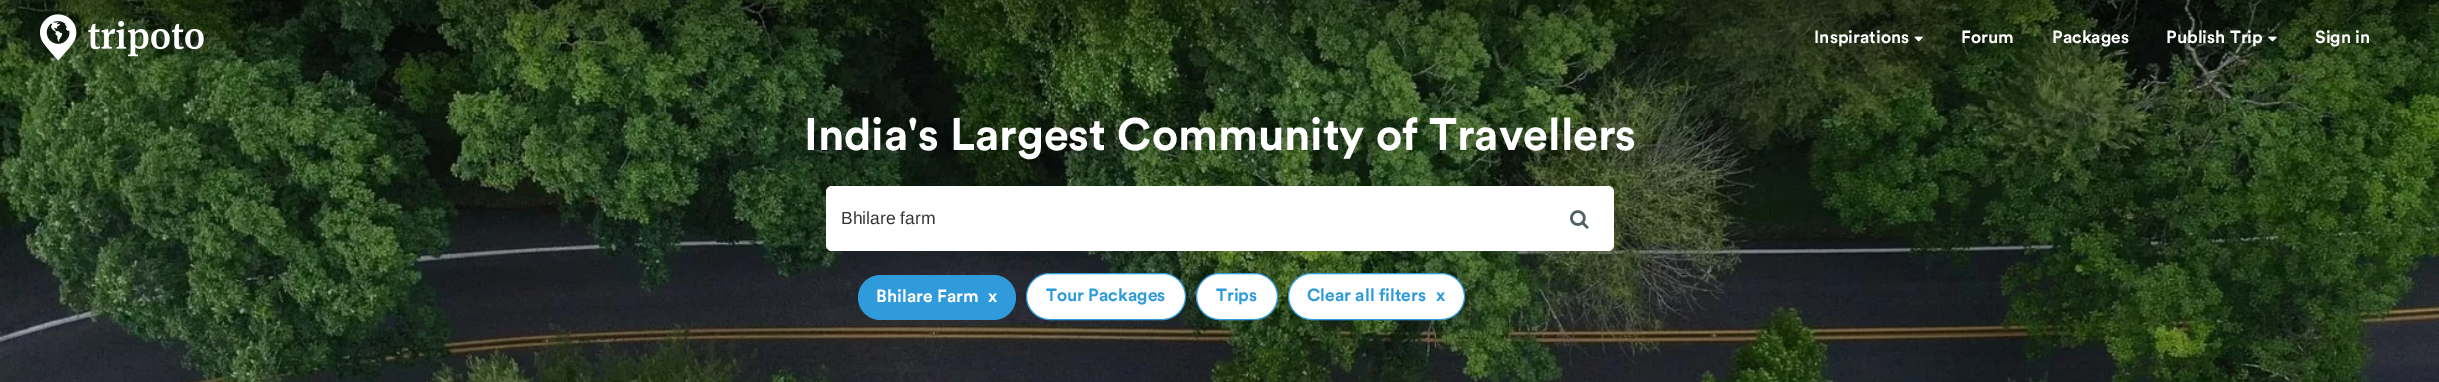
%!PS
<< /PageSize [2439 382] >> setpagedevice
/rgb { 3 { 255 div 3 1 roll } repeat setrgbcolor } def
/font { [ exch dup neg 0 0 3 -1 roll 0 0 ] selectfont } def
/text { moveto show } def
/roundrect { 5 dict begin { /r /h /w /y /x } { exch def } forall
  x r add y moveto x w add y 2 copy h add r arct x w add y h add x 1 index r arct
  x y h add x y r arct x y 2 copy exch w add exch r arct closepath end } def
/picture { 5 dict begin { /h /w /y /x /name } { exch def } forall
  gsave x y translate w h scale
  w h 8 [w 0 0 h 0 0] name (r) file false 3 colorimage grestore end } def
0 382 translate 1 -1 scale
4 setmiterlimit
255 255 255 rgb
0 0 2439 382 rectfill
(img_04.rgb) 0 0 2439 382 picture
(img_01.rgb) 40 14 164 47 picture
(img_02.rgb) 1914 36 9 6 picture
(img_03.rgb) 2268 36 9 6 picture
826 186 788 65 6 roundrect fill
(img_05.rgb) 1570 210 19 19 picture
47 155 219 rgb
858 275 158 45 22.5 roundrect fill
255 255 255 rgb
1026.5 273.5 159 46 23 roundrect gsave fill grestore
47 155 219 rgb
stroke
255 255 255 rgb
1196.5 273.5 81 46 23 roundrect gsave fill grestore
47 155 219 rgb
stroke
255 255 255 rgb
1288.5 273.5 176 46 23 roundrect gsave fill grestore
47 155 219 rgb
stroke
/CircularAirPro-Bold 17.5 font
255 255 255 rgb
(Inspirations) 1814 43 text
(Forum) 1961 43 text
(Packages) 2052 43 text
(Publish Trip) 2166 43 text
(Sign in) 2315 43 text
/CircularAirPro-Bold 45 font
(India's Largest Community of Travellers) 804 150 text
/LiberationSans-Regular 17.5 font
51 51 51 rgb
(Bhilare farm) 841 224 text
/CircularAirPro-Bold 17.5 font
255 255 255 rgb
(Bhilare Farm) 876 302 text
(x) 988 302 text
47 155 219 rgb
(Tour Packages) 1046 301 text
(Trips) 1216 301 text
(Clear all filters) 1307 301 text
(x) 1436 301 text
showpage
